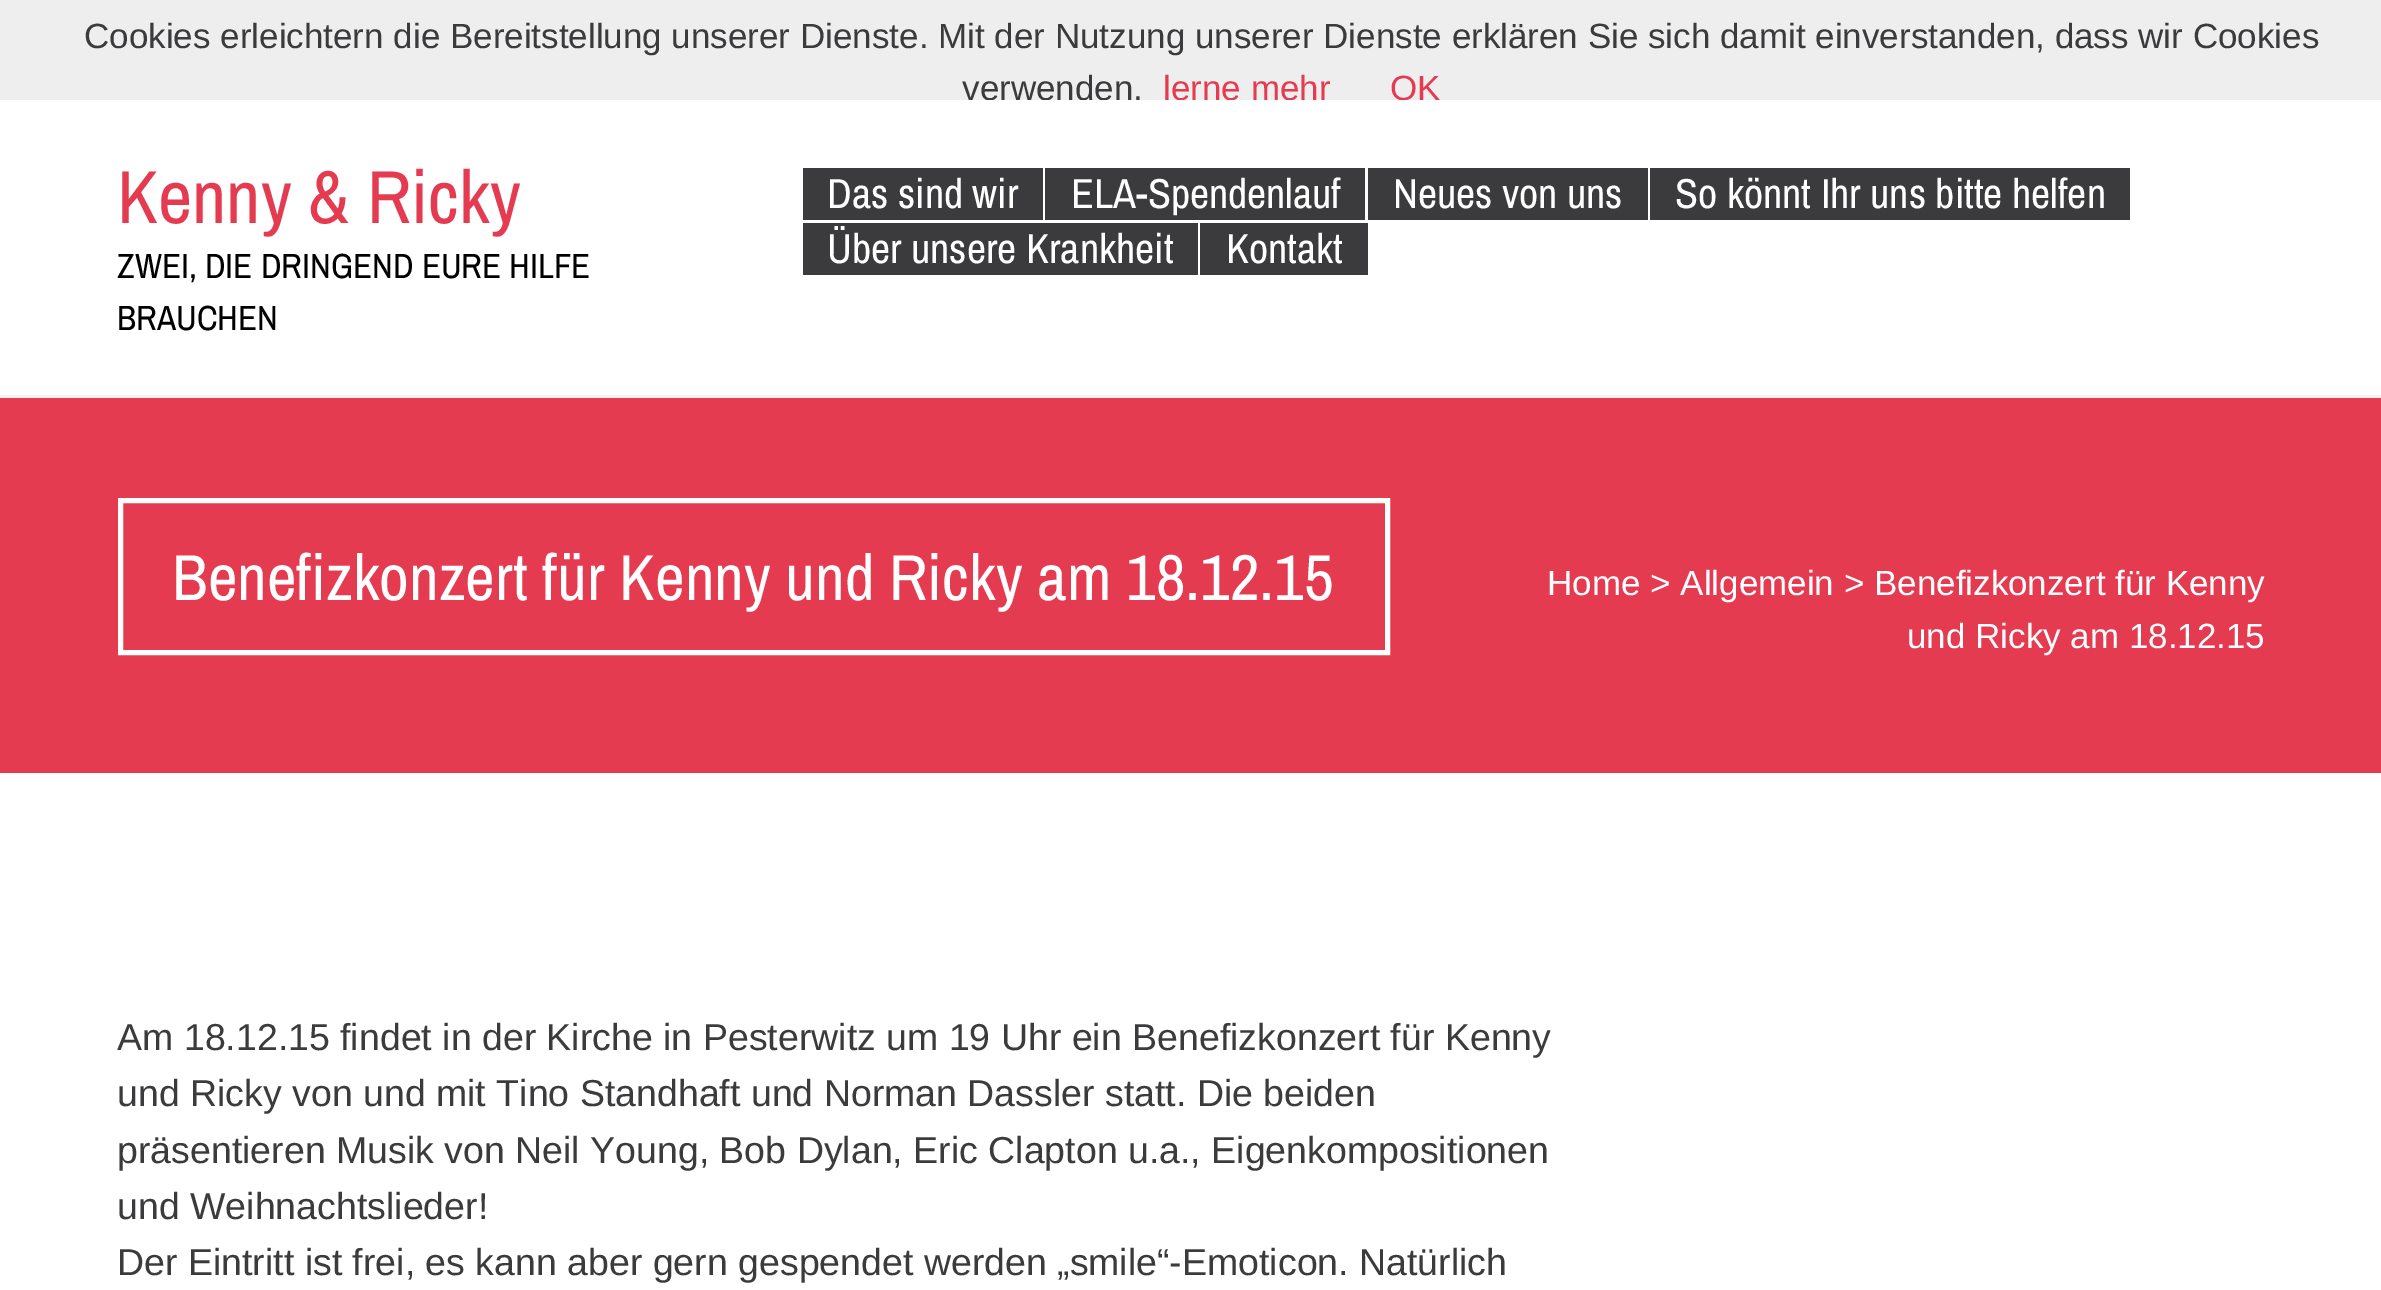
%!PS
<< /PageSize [2381 1290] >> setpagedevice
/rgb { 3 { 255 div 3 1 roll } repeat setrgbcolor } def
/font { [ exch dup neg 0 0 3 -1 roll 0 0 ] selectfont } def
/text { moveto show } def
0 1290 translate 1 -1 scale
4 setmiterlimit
255 255 255 rgb
0 0 2381 1290 rectfill
238 238 238 rgb
0 0 2381 100 rectfill
243 243 243 rgb
0 395 2381 3 rectfill
59 59 61 rgb
803 168 240 52 rectfill
1045 168 320 52 rectfill
1368 168 280 52 rectfill
1650 168 480 52 rectfill
803 223 395 52 rectfill
1200 223 168 52 rectfill
229 59 81 rgb
0 398 2381 375 rectfill
255 255 255 rgb
5 setlinewidth
120.5 500.5 1267 152 rectstroke
/Arimo-Regular 35 font
59 59 61 rgb
(Cookies erleichtern die Bereitstellung unserer Dienste. Mit der Nutzung unserer Dienste erklären Sie sich damit einverstanden, dass wir Cookies) 84 48 text
(verwenden.) 962 100 text
229 59 81 rgb
(lerne mehr) 1163 100 text
(OK) 1390 100 text
255 255 255 rgb
986 100 421 1 rectfill
/ArchivoNarrow-Regular 75 font
229 59 81 rgb
(Kenny & Ricky) 117 223 text
/ArchivoNarrow-Regular 35 font
0 0 0 rgb
(ZWEI, DIE DRINGEND EURE HILFE) 117 278 text
(BRAUCHEN) 117 330 text
/ArchivoNarrow-Regular 42 font
255 255 255 rgb
(Das sind wir) 827 208 text
(ELA-Spendenlauf) 1071 208 text
(Neues von uns) 1393 208 text
(So könnt Ihr uns bitte helfen) 1675 208 text
(Über unsere Krankheit) 827 263 text
(Kontakt) 1226 263 text
/ArchivoNarrow-Regular 65 font
(Benefizkonzert für Kenny und Ricky am 18.12.15) 172 600 text
/Arimo-Regular 35 font
(Home > Allgemein > Benefizkonzert für Kenny) 1547 595 text
(und Ricky am 18.12.15) 1907 648 text
/Arimo-Regular 37.5 font
59 59 61 rgb
(Am 18.12.15 findet in der Kirche in Pesterwitz um 19 Uhr ein Benefizkonzert für Kenny) 117 1050 text
(und Ricky von und mit Tino Standhaft und Norman Dassler statt. Die beiden) 117 1106 text
(präsentieren Musik von Neil Young, Bob Dylan, Eric Clapton u.a., Eigenkompositionen) 117 1163 text
(und Weihnachtslieder!) 117 1219 text
(Der Eintritt ist frei, es kann aber gern gespendet werden „smile“-Emoticon. Natürlich) 117 1275 text
showpage
